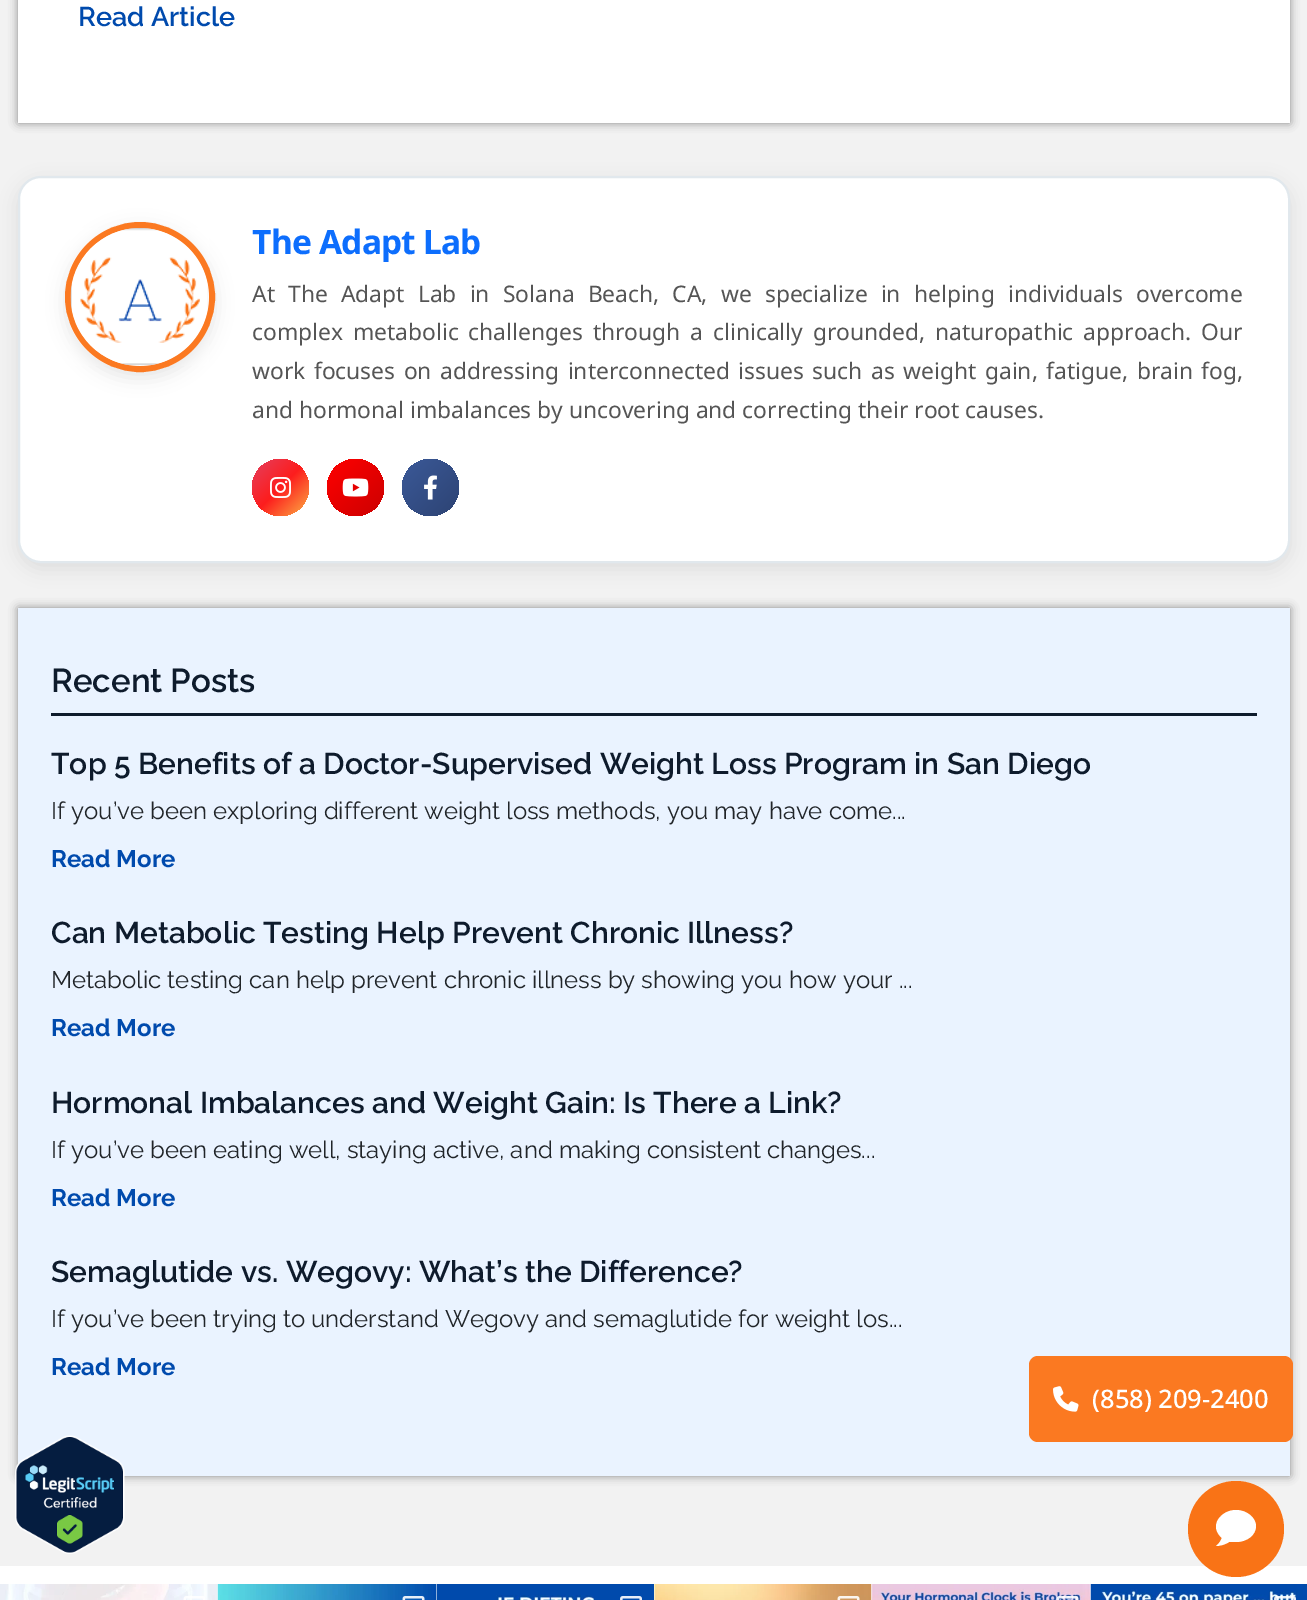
%!PS
<< /PageSize [1307 1600] /PageUsesTransparency true >> setpagedevice
/rgb { 3 { 255 div 3 1 roll } repeat setrgbcolor } def
/font { [ exch dup neg 0 0 3 -1 roll 0 0 ] selectfont } def
/text { moveto show } def
/alpha { dup .setfillconstantalpha .setstrokeconstantalpha } def
/circle { newpath 0 360 arc closepath } def
/roundrect { 5 dict begin { /r /h /w /y /x } { exch def } forall
  x r add y moveto x w add y 2 copy h add r arct x w add y h add x 1 index r arct
  x y h add x y r arct x y 2 copy exch w add exch r arct closepath end } def
/shadow { 12 dict begin { /a /b /q /h /w /y /x } { exch def } forall gsave /was 0 def
  9 -2 -9 { dup b mul 4 div /e exch def 1 sub .425 mul 2.718 exch exp 1 add a .99 .min exch div /now exch def
    1 1 now sub 1 was sub div sub alpha /was now def
    w h .min e 2 mul add 0 gt { x e sub y e sub w e 2 mul add h e 2 mul add
      q e add b .6 mul add w h .min 2 div e add .min 0 .max roundrect fill } if } for grestore end } def
/picture { 5 dict begin { /h /w /y /x /name } { exch def } forall
  gsave x y translate w h scale
  w h 8 [w 0 0 h 0 0] name (r) file false 3 colorimage grestore end } def
0 .pushpdf14devicefilter
0 1600 translate 1 -1 scale
4 setmiterlimit
255 255 255 rgb
0 0 1307 1600 rectfill
242 242 242 rgb
0 0 1307 1566 rectfill
91 91 91 rgb
18 -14 1272 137 0 4.5 0.7 shadow
255 255 255 rgb
18 0 1272 123 rectfill
0 0 0 rgb
18 182 1272 387 23 9 0.08 shadow
255 255 255 rgb
19 177 1270 385 22 roundrect gsave fill grestore
225 232 237 rgb
2 setlinewidth
stroke
0 0 0 rgb
65 228 150 150 75 9 0.1 shadow
251 121 33 rgb
6 setlinewidth
140 297 72 circle stroke
(img_01.rgb) 70 228 139 138 picture
gsave 280.5 487.5 28.5 circle clip newpath
<< /ShadingType 2 /ColorSpace /DeviceRGB /Coords [252 459 309 516] /Extend [true true] /Function << /FunctionType 3 /Domain [0 1] /Functions [<< /FunctionType 2 /Domain [0 1] /C0 [0.894 0.251 0.373] /C1 [0.992 0.114 0.114] /N 1 >> << /FunctionType 2 /Domain [0 1] /C0 [0.992 0.114 0.114] /C1 [0.988 0.69 0.271] /N 1 >>] /Bounds [0.5] /Encode [0 1 0 1] >> >> shfill grestore
(img_02.rgb) 270 477 21 21 picture
gsave 355.5 487.5 28.5 circle clip newpath
<< /ShadingType 2 /ColorSpace /DeviceRGB /Coords [327 459 384 516] /Extend [true true] /Function << /FunctionType 2 /Domain [0 1] /C0 [1 0 0] /C1 [0.8 0 0] /N 1 >> >> shfill grestore
(img_03.rgb) 342 478 27 19 picture
gsave 430.5 487.5 28.5 circle clip newpath
<< /ShadingType 2 /ColorSpace /DeviceRGB /Coords [402 459 459 516] /Extend [true true] /Function << /FunctionType 2 /Domain [0 1] /C0 [0.231 0.349 0.596] /C1 [0.176 0.263 0.451] /N 1 >> >> shfill grestore
(img_04.rgb) 424 475 13 25 picture
91 91 91 rgb
18 608 1272 868 0 4.5 0.7 shadow
234 243 255 rgb
18 608 1272 868 rectfill
14 27 44 rgb
51 713 1206 3 rectfill
251 121 33 rgb
1029 1356 264 86 9 roundrect fill
(img_05.rgb) 1053 1386 26 26 picture
(img_06.rgb) 15 1435 110 119 picture
249 115 22 rgb
1236 1529 48 circle fill
255 255 255 rgb
1236 1510 moveto 11 0 20 8 20 16 rcurveto 0 9 -9 16 -20 16 rcurveto -7 0 rlineto -6 4 -13 4 -13 4 rcurveto 5 -4 5 -7 6 -8 rcurveto -14 -12 -1 -28 14 -28 rcurveto fill
(img_07.rgb) 0 1584 218 16 picture
(img_08.rgb) 183 1596 22 4 picture
(img_09.rgb) 217 1584 220 16 picture
(img_10.rgb) 402 1596 23 4 picture
(img_11.rgb) 436 1584 218 16 picture
(img_12.rgb) 620 1596 22 4 picture
(img_13.rgb) 654 1584 218 16 picture
(img_14.rgb) 837 1596 23 4 picture
(img_15.rgb) 871 1584 220 16 picture
(img_16.rgb) 1056 1596 23 4 picture
(img_17.rgb) 1090 1584 217 16 picture
(img_18.rgb) 1274 1596 22 4 picture
/Raleway-SemiBold 27 font
0 74 173 rgb
(Read Article) 78 26 text
/NotoSans-Bold 33.5 font
13 110 253 rgb
252 254 moveto -0.75 0 (The Adapt Lab) ashow
/NotoSans-Regular 22.8 font
85 85 85 rgb
252 302 moveto 7.25 0 32 (At The Adapt Lab in Solana Beach, CA, we specialize in helping individuals overcome) widthshow
252 340 moveto 4 0 32 (complex metabolic challenges through a clinically grounded, naturopathic approach. Our) widthshow
252 379 moveto 2.6 0 32 (work focuses on addressing interconnected issues such as weight gain, fatigue, brain fog,) widthshow
(and hormonal imbalances by uncovering and correcting their root causes.) 252 418 text
/Raleway-SemiBold 33 font
14 27 44 rgb
(Recent Posts) 51 692 text
/Raleway-SemiBold 30 font
(Top 5 Benefits of a Doctor-Supervised Weight Loss Program in San Diego) 51 774 text
/Raleway-Regular 24 font
33 37 41 rgb
(If you’ve been exploring different weight loss methods, you may have come...) 51 819 text
/Raleway-Bold 24 font
0 74 173 rgb
(Read More) 51 867 text
/Raleway-SemiBold 30 font
14 27 44 rgb
(Can Metabolic Testing Help Prevent Chronic Illness?) 51 943 text
/Raleway-Regular 24 font
33 37 41 rgb
(Metabolic testing can help prevent chronic illness by showing you how your ...) 51 988 text
/Raleway-Bold 24 font
0 74 173 rgb
(Read More) 51 1036 text
/Raleway-SemiBold 30 font
14 27 44 rgb
(Hormonal Imbalances and Weight Gain: Is There a Link?) 51 1113 text
/Raleway-Regular 24 font
33 37 41 rgb
(If you’ve been eating well, staying active, and making consistent changes...) 51 1158 text
/Raleway-Bold 24 font
0 74 173 rgb
(Read More) 51 1206 text
/Raleway-SemiBold 30 font
14 27 44 rgb
(Semaglutide vs. Wegovy: What’s the Difference?) 51 1282 text
/Raleway-Regular 24 font
33 37 41 rgb
(If you’ve been trying to understand Wegovy and semaglutide for weight los...) 51 1327 text
/Raleway-Bold 24 font
0 74 173 rgb
(Read More) 51 1375 text
/NotoSans-Medium 25.5 font
255 255 255 rgb
(\(858\) 209-2400) 1092 1408 text
.poppdf14devicefilter showpage
